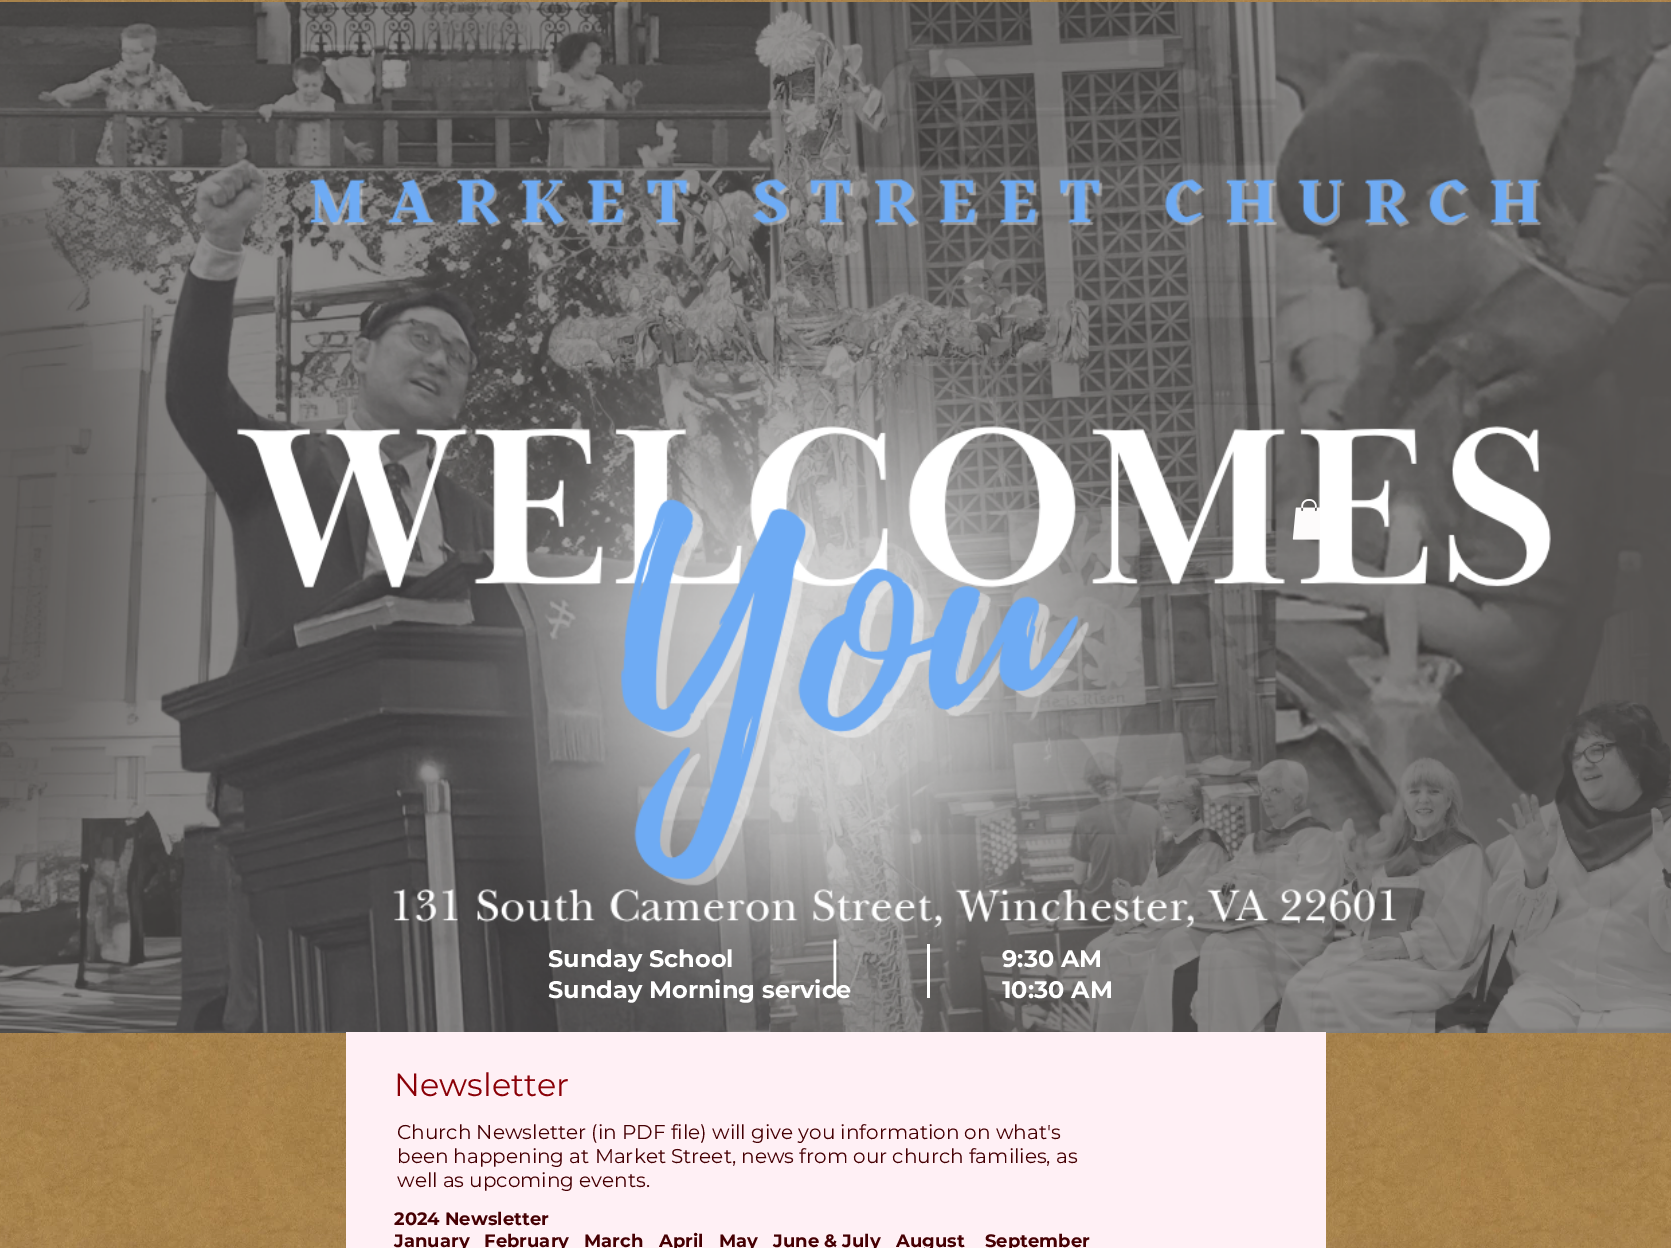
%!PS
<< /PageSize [1671 1248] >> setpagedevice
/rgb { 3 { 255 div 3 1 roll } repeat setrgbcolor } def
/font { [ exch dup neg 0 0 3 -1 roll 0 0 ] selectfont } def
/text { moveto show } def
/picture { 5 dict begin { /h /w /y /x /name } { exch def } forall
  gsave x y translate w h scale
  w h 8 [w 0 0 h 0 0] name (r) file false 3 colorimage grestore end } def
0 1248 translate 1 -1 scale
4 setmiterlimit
255 255 255 rgb
0 0 1671 1248 rectfill
(img_01.rgb) 0 0 1671 1248 picture
(img_02.rgb) 0 2 1671 1031 picture
(img_03.rgb) 1292 499 28 41 picture
927 944 3 54 rectfill
255 240 245 rgb
346 1032 980 216 rectfill
/Montserrat-Bold 24 font
255 255 255 rgb
(Sunday School) 548 967 text
(9:30 AM) 1002 967 text
(Sunday Morning service) 548 998 text
(10:30 AM) 1002 998 text
/Montserrat-Regular 32 font
139 0 7 rgb
(Newsletter) 394 1096 text
/Montserrat-Regular 20 font
70 0 3 rgb
(Church Newsletter \(in PDF file\) will give you information on what's) 397 1139 text
(been happening at Market Street, news from our church families, as) 397 1163 text
(well as upcoming events.) 397 1187 text
/Montserrat-Bold 18 font
(2024 Newsletter) 394 1225 text
(January) 394 1247 text
(February) 484 1247 text
(March) 584 1247 text
(April) 659 1247 text
(May) 719 1247 text
(June & July) 773 1247 text
(August) 896 1247 text
(September) 985 1247 text
showpage
